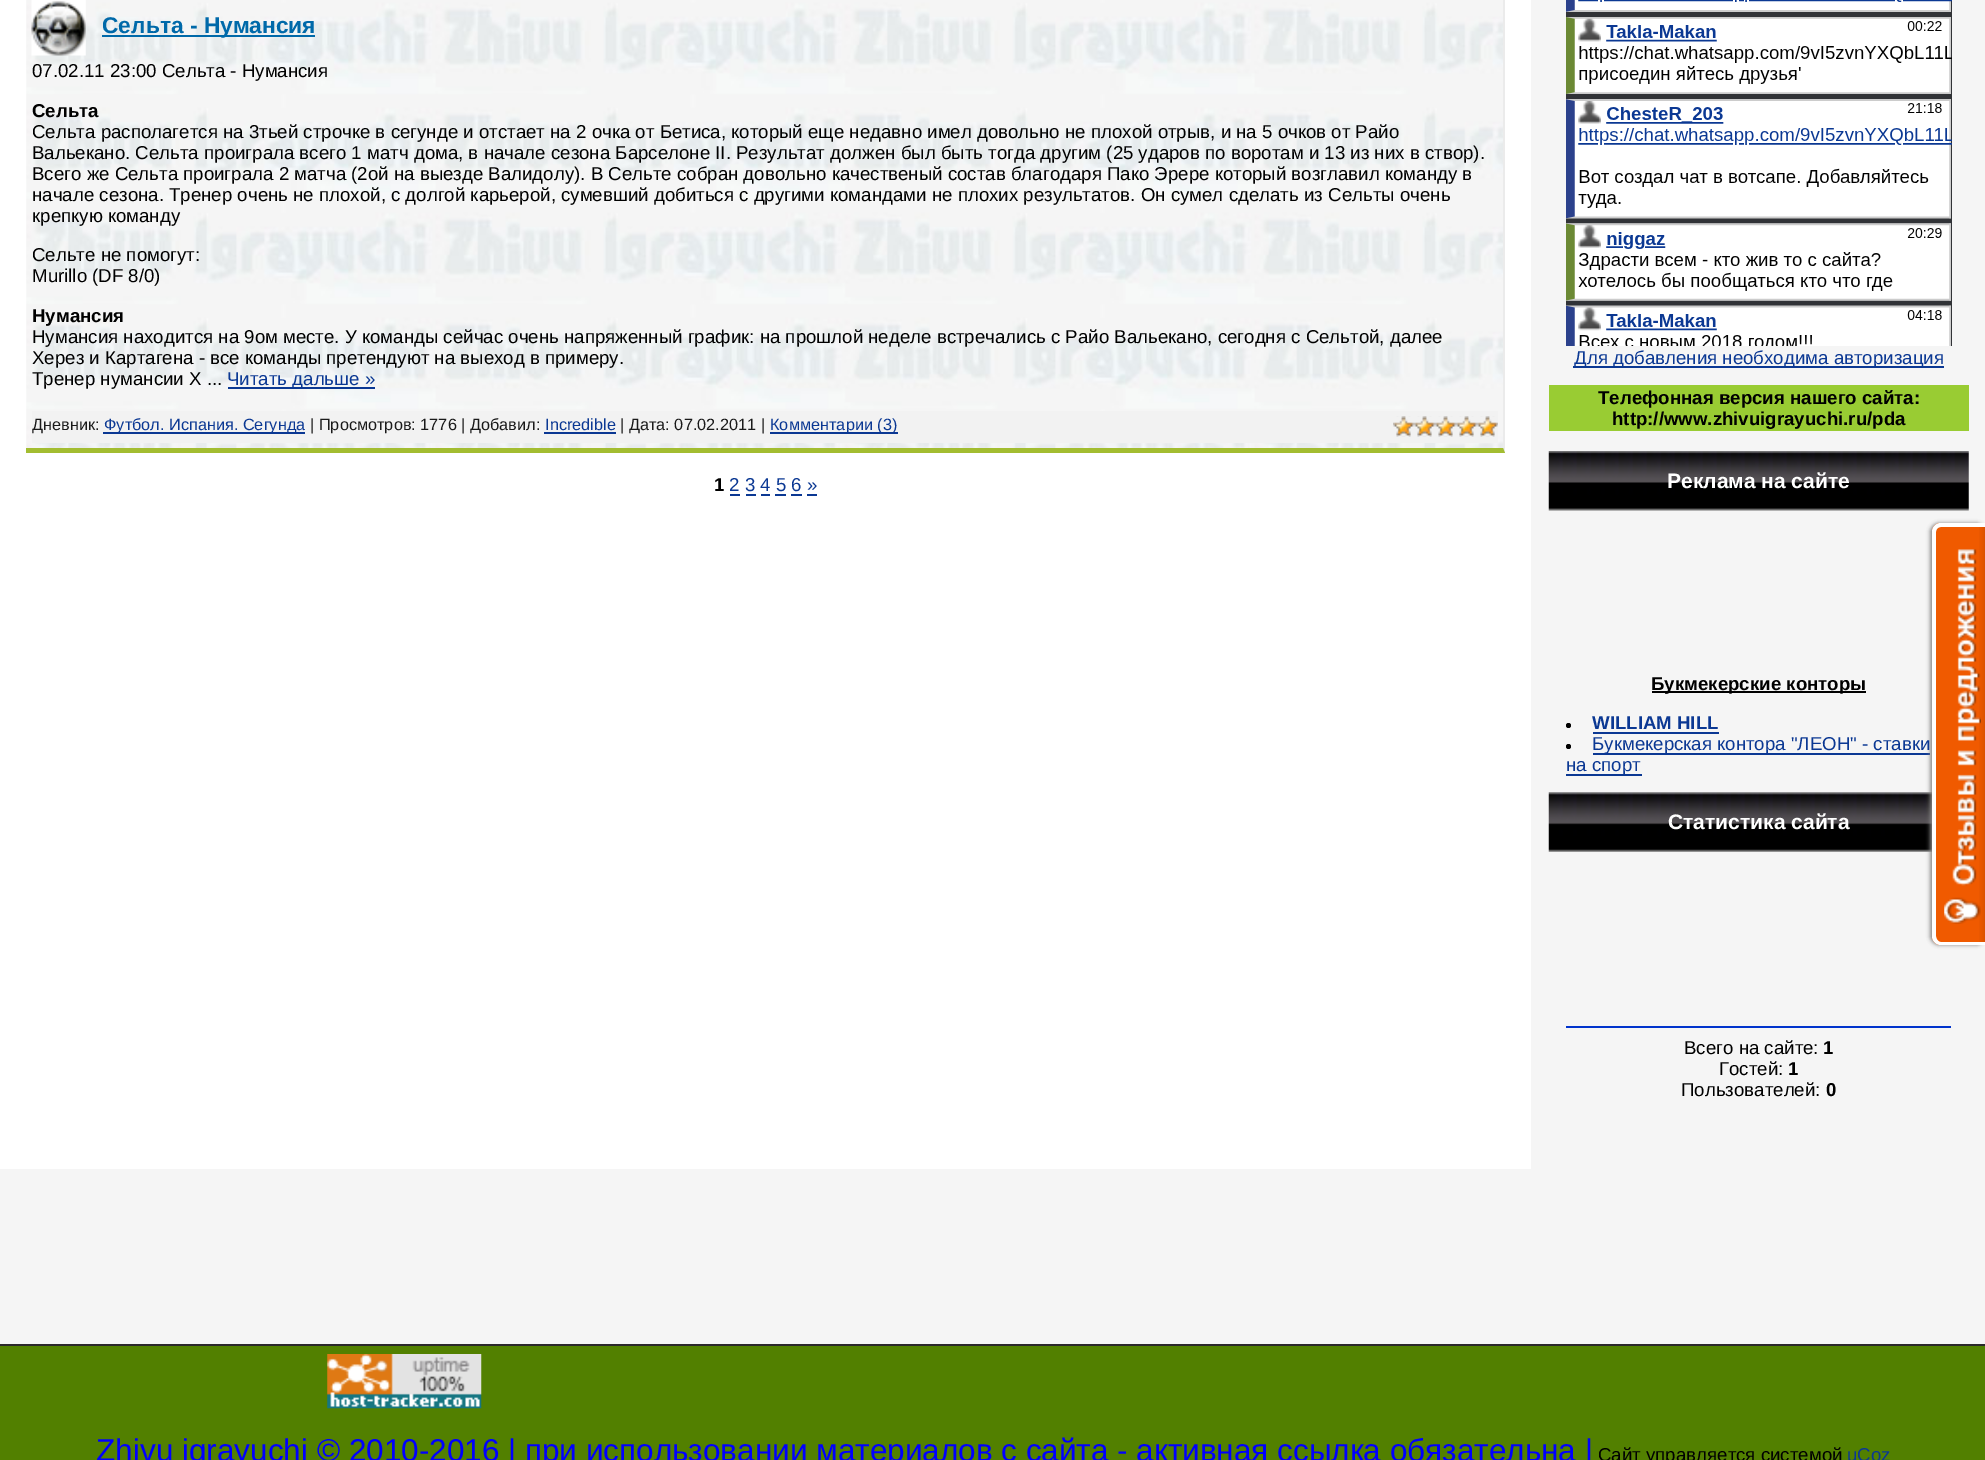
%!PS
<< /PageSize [1985 1460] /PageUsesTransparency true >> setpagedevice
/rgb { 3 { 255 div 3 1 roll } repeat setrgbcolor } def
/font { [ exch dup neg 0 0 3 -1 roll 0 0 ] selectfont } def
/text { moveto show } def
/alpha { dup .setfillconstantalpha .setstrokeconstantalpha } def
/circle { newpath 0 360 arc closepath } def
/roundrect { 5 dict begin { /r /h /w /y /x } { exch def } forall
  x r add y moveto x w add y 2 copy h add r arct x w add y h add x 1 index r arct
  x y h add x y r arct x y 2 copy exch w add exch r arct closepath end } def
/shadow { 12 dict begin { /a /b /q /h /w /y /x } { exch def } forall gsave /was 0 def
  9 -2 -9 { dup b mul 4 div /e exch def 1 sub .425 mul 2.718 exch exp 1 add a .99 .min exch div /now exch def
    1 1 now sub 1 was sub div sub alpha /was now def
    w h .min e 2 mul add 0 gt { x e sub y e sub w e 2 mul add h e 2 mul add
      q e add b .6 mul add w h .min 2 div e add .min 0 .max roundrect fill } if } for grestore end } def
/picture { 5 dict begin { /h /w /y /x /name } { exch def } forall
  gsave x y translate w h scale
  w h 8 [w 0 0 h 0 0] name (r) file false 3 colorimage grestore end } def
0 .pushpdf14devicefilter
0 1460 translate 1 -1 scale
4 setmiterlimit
255 255 255 rgb
0 0 1985 1460 rectfill
(img_01.rgb) 26 0 1479 453 picture
235 235 235 rgb
1505 -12 moveto 0 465 rlineto -2 -5 rlineto 0 -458 rlineto closepath fill
163 189 49 rgb
1505 453 moveto -1479 0 rlineto 0 -5 rlineto 1477 0 rlineto closepath fill
(img_02.rgb) 31 0 55 56 picture
0 105 169 rgb
102 35 213 2 rectfill
11 56 147 rgb
228 387 147 2 rectfill
242 242 242 rgb
32 411 1466 32 rectfill
11 56 147 rgb
103 432 202 2 rectfill
544 432 72 2 rectfill
770 432 128 2 rectfill
(img_03.rgb) 1393 416 105 21 picture
(img_04.rgb) 1393 416 105 21 picture
730 494 10 2 rectfill
746 494 10 2 rectfill
761 494 9 2 rectfill
775 494 11 2 rectfill
791 494 11 2 rectfill
807 494 10 2 rectfill
245 245 245 rgb
1531 0 454 1169 rectfill
(img_05.rgb) 1566 0 386 346 picture
11 56 147 rgb
1573 366 371 2 rectfill
153 204 51 rgb
1549 385 420 46 rectfill
(img_06.rgb) 1548 451 421 60 picture
0 0 0 rgb
1652 691 214 2 rectfill
1568.5 725.5 2.5 circle fill
11 56 147 rgb
1593 732 126 2 rectfill
0 0 0 rgb
1568.5 746.5 2.5 circle fill
11 56 147 rgb
1593 753 337 2 rectfill
1566 774 76 2 rectfill
(img_07.rgb) 1548 792 384 60 picture
0 51 204 rgb
1566 1026 385 2 rectfill
245 245 245 rgb
0 1169 1985 175 rectfill
82 128 0 rgb
0 1346 1985 114 rectfill
42 40 42 rgb
0 1344 1985 2 rectfill
(img_08.rgb) 327 1354 155 55 picture
136 136 136 rgb
1930 523 55 422 9 2 1 shadow
240 90 0 rgb
1941 523 moveto 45 0 rlineto 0 422 rlineto -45 0 rlineto -5 0 -9 -4 -9 -9 rcurveto 0 -404 rlineto 0 -5 4 -9 9 -9 rcurveto closepath fill
(img_09.rgb) 1979 527 6 415 picture
255 255 255 rgb
1941 523 moveto 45 0 rlineto 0 422 rlineto -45 0 rlineto -5 0 -9 -4 -9 -9 rcurveto 0 -404 rlineto 0 -5 4 -9 9 -9 rcurveto closepath 1941 527 moveto 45 0 rlineto 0 415 rlineto -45 0 rlineto -3 0 -5 -3 -5 -6 rcurveto 0 -404 rlineto 0 -3 2 -5 5 -5 rcurveto closepath eofill
(img_10.rgb) 1944 549 37 375 picture
/LiberationSans-Bold 22.75 font
0 105 169 rgb
(Сельта - Нумансия) 102 33 text
/LiberationSans-Regular 18.67 font
0 0 0 rgb
(07.02.11 23:00 Сельта - Нумансия) 32 77 text
/LiberationSans-Bold 18.67 font
(Сельта) 32 117 text
/LiberationSans-Regular 18.67 font
(Сельта располагется на 3тьей строчке в сегунде и отстает на 2 очка от Бетиса, который еще недавно имел довольно не плохой отрыв, и на 5 очков от Райо) 32 138 text
(Вальекано. Сельта проиграла всего 1 матч дома, в начале сезона Барселоне II. Результат должен был быть тогда другим \(25 ударов по воротам и 13 из них в створ\).) 32 159 text
(Всего же Сельта проиграла 2 матча \(2ой на выезде Валидолу\). В Сельте собран довольно качественый состав благодаря Пако Эрере который возглавил команду в) 32 180 text
(начале сезона. Тренер очень не плохой, с долгой карьерой, сумевший добиться с другими командами не плохих результатов. Он сумел сделать из Сельты очень) 32 201 text
(крепкую команду) 32 222 text
(Сельте не помогут:) 32 261 text
(Murillo \(DF 8/0\)) 32 282 text
/LiberationSans-Bold 18.67 font
(Нумансия) 32 322 text
/LiberationSans-Regular 18.67 font
(Нумансия находится на 9ом месте. У команды сейчас очень напряженный график: на прошлой неделе встречались с Райо Вальекано, сегодня с Сельтой, далее) 32 343 text
(Херез и Картагена - все команды претендуют на выеход в примеру.) 32 364 text
(Тренер нумансии Х ...) 32 385 text
11 56 147 rgb
(Читать дальше ») 227 385 text
/LiberationSans-Regular 16.3 font
26 26 26 rgb
(Дневник:) 32 430 text
11 56 147 rgb
(Футбол. Испания. Сегунда) 104 430 text
26 26 26 rgb
(| Просмотров: 1776 | Добавил:) 310 430 text
11 56 147 rgb
(Incredible) 545 430 text
26 26 26 rgb
(| Дата: 07.02.2011 |) 620 430 text
11 56 147 rgb
(Комментарии \(3\)) 770 430 text
/LiberationSans-Bold 18.67 font
0 0 0 rgb
(1) 714 491 text
/LiberationSans-Regular 18.67 font
11 56 147 rgb
(2 3 4 5 6 ») 729 491 text
(Для добавления необходима авторизация) 1574 364 text
/LiberationSans-Bold 18.67 font
0 0 0 rgb
(Телефонная версия нашего сайта:) 1598 404 text
(http://www.zhivuigrayuchi.ru/pda) 1612 425 text
/LiberationSans-Bold 21 font
255 255 255 rgb
(Реклама на сайте) 1667 488 text
/LiberationSans-Bold 18.67 font
0 0 0 rgb
(Букмекерские конторы) 1651 690 text
11 56 147 rgb
(WILLIAM HILL) 1592 729 text
/LiberationSans-Regular 18.67 font
(Букмекерская контора "ЛЕОН" - ставки) 1592 750 text
(на спорт) 1566 771 text
/LiberationSans-Bold 21 font
255 255 255 rgb
(Статистика сайта) 1668 829 text
/LiberationSans-Regular 18.67 font
0 0 0 rgb
(Всего на сайте:) 1684 1054 text
/LiberationSans-Bold 18.67 font
(1) 1823 1054 text
/LiberationSans-Regular 18.67 font
(Гостей:) 1719 1075 text
/LiberationSans-Bold 18.67 font
(1) 1788 1075 text
/LiberationSans-Regular 18.67 font
(Пользователей:) 1681 1096 text
/LiberationSans-Bold 18.67 font
(0) 1826 1096 text
/LiberationSans-Regular 31.5 font
0 0 255 rgb
(Zhivu igrayuchi © 2010-2016 | при использовании материалов с сайта - активная ссылка обязательна |) 96 1461 text
/LiberationSans-Regular 18.67 font
0 0 0 rgb
(Сайт управляется системой) 1598 1461 text
11 56 147 rgb
(uCoz) 1847 1461 text
.poppdf14devicefilter showpage
